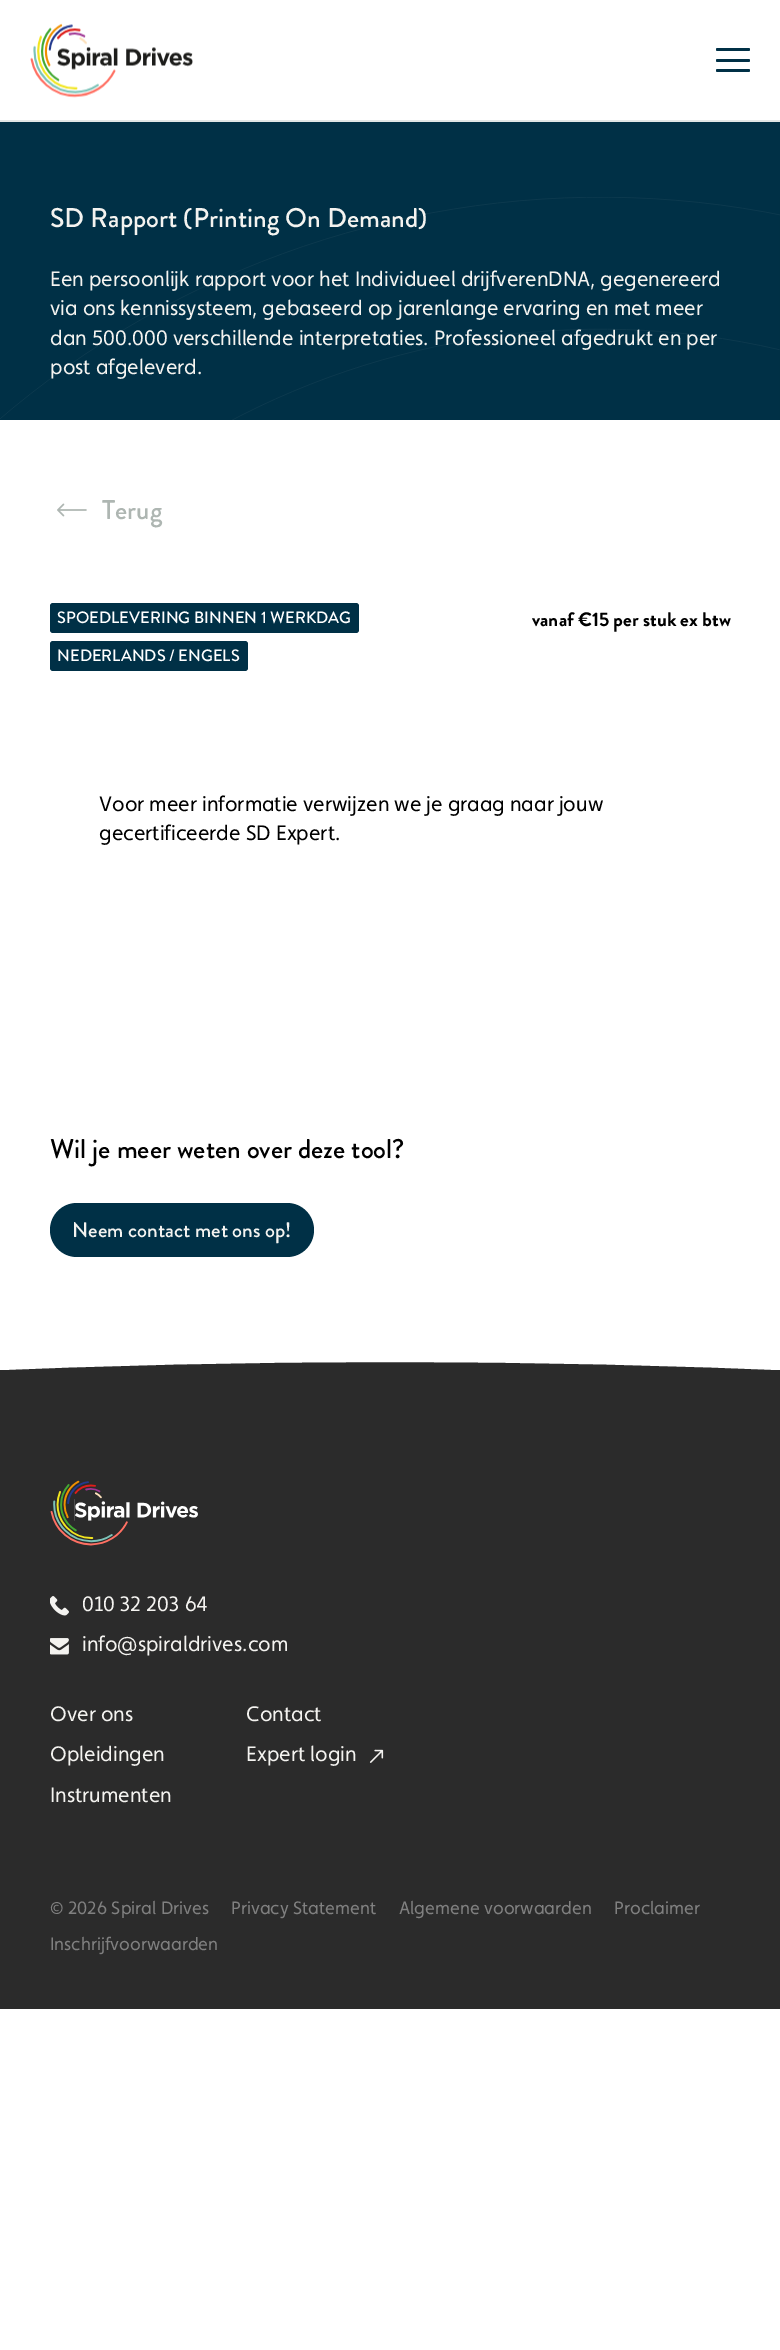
%!PS
<< /PageSize [780 2350] >> setpagedevice
/rgb { 3 { 255 div 3 1 roll } repeat setrgbcolor } def
/font { [ exch dup neg 0 0 3 -1 roll 0 0 ] selectfont } def
/text { moveto show } def
/roundrect { 5 dict begin { /r /h /w /y /x } { exch def } forall
  x r add y moveto x w add y 2 copy h add r arct x w add y h add x 1 index r arct
  x y h add x y r arct x y 2 copy exch w add exch r arct closepath end } def
/picture { 5 dict begin { /h /w /y /x /name } { exch def } forall
  gsave x y translate w h scale
  w h 8 [w 0 0 h 0 0] name (r) file false 3 colorimage grestore end } def
0 2350 translate 1 -1 scale
4 setmiterlimit
255 255 255 rgb
0 0 780 2350 rectfill
225 230 230 rgb
0 120 780 2 rectfill
(img_01.rgb) 30 23 163 75 picture
0 48 70 rgb
716 59 34 3 1.5 roundrect fill
716 48 34 3 1.5 roundrect fill
716 69 34 3 1.5 roundrect fill
0 122 780 298 rectfill
(img_02.rgb) 0 197 780 223 picture
(img_03.rgb) 57 503 30 14 picture
50 603 309 30 3 roundrect fill
50 641 198 30 3 roundrect fill
50 1203 264 54 27 roundrect fill
43 43 43 rgb
0 1370 780 639 rectfill
gsave
0 1362 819 9 rectclip
-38 1372 moveto 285 -13 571 -13 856 0 rcurveto closepath eofill
grestore
(img_04.rgb) 50 1480 148 66 picture
(img_05.rgb) 50 1596 19 20 picture
(img_06.rgb) 50 1638 19 17 picture
(img_07.rgb) 369 1749 15 14 picture
/BrandonGrotesque-Medium 27 font
244 243 240 rgb
(SD Rapport \(Printing On Demand\)) 50 227 text
/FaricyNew-Regular 21 font
(Een persoonlijk rapport voor het Individueel drijfverenDNA, gegenereerd) 50 286 text
(via ons kennissysteem, gebaseerd op jarenlange ervaring en met meer) 50 315 text
(dan 500.000 verschillende interpretaties. Professioneel afgedrukt en per) 50 345 text
(post afgeleverd.) 50 374 text
/BrandonGrotesque-Medium 27 font
174 182 178 rgb
(Terug) 102 519 text
/BrandonGrotesque-Medium 16.5 font
255 255 255 rgb
(SPOEDLEVERING BINNEN 1 WERKDAG) 57 623 text
(NEDERLANDS / ENGELS) 57 661 text
/BrandonGrotesque-Bold 19.5 font
0 0 0 rgb
(vanaf €15 per stuk ex btw) 532 626 text
/FaricyNew-Regular 21 font
(Voor meer informatie verwijzen we je graag naar jouw) 99 811 text
(gecertificeerde SD Expert.) 99 840 text
/BrandonGrotesque-Medium 27 font
(Wil je meer weten over deze tool?) 50 1158 text
/BrandonGrotesque-Medium 21 font
244 243 240 rgb
(Neem contact met ons op!) 72 1237 text
/FaricyNew-Regular 21 font
(010 32 203 64) 82 1611 text
(info@spiraldrives.com) 82 1651 text
(Over ons) 50 1721 text
(Opleidingen) 50 1761 text
(Instrumenten) 50 1802 text
(Contact) 246 1721 text
(Expert login) 246 1761 text
/FaricyNew-Regular 18 font
128 128 128 rgb
(© 2026 Spiral Drives) 50 1914 text
(Privacy Statement) 231 1914 text
(Algemene voorwaarden) 399 1914 text
(Proclaimer) 614 1914 text
(Inschrijfvoorwaarden) 50 1950 text
showpage
